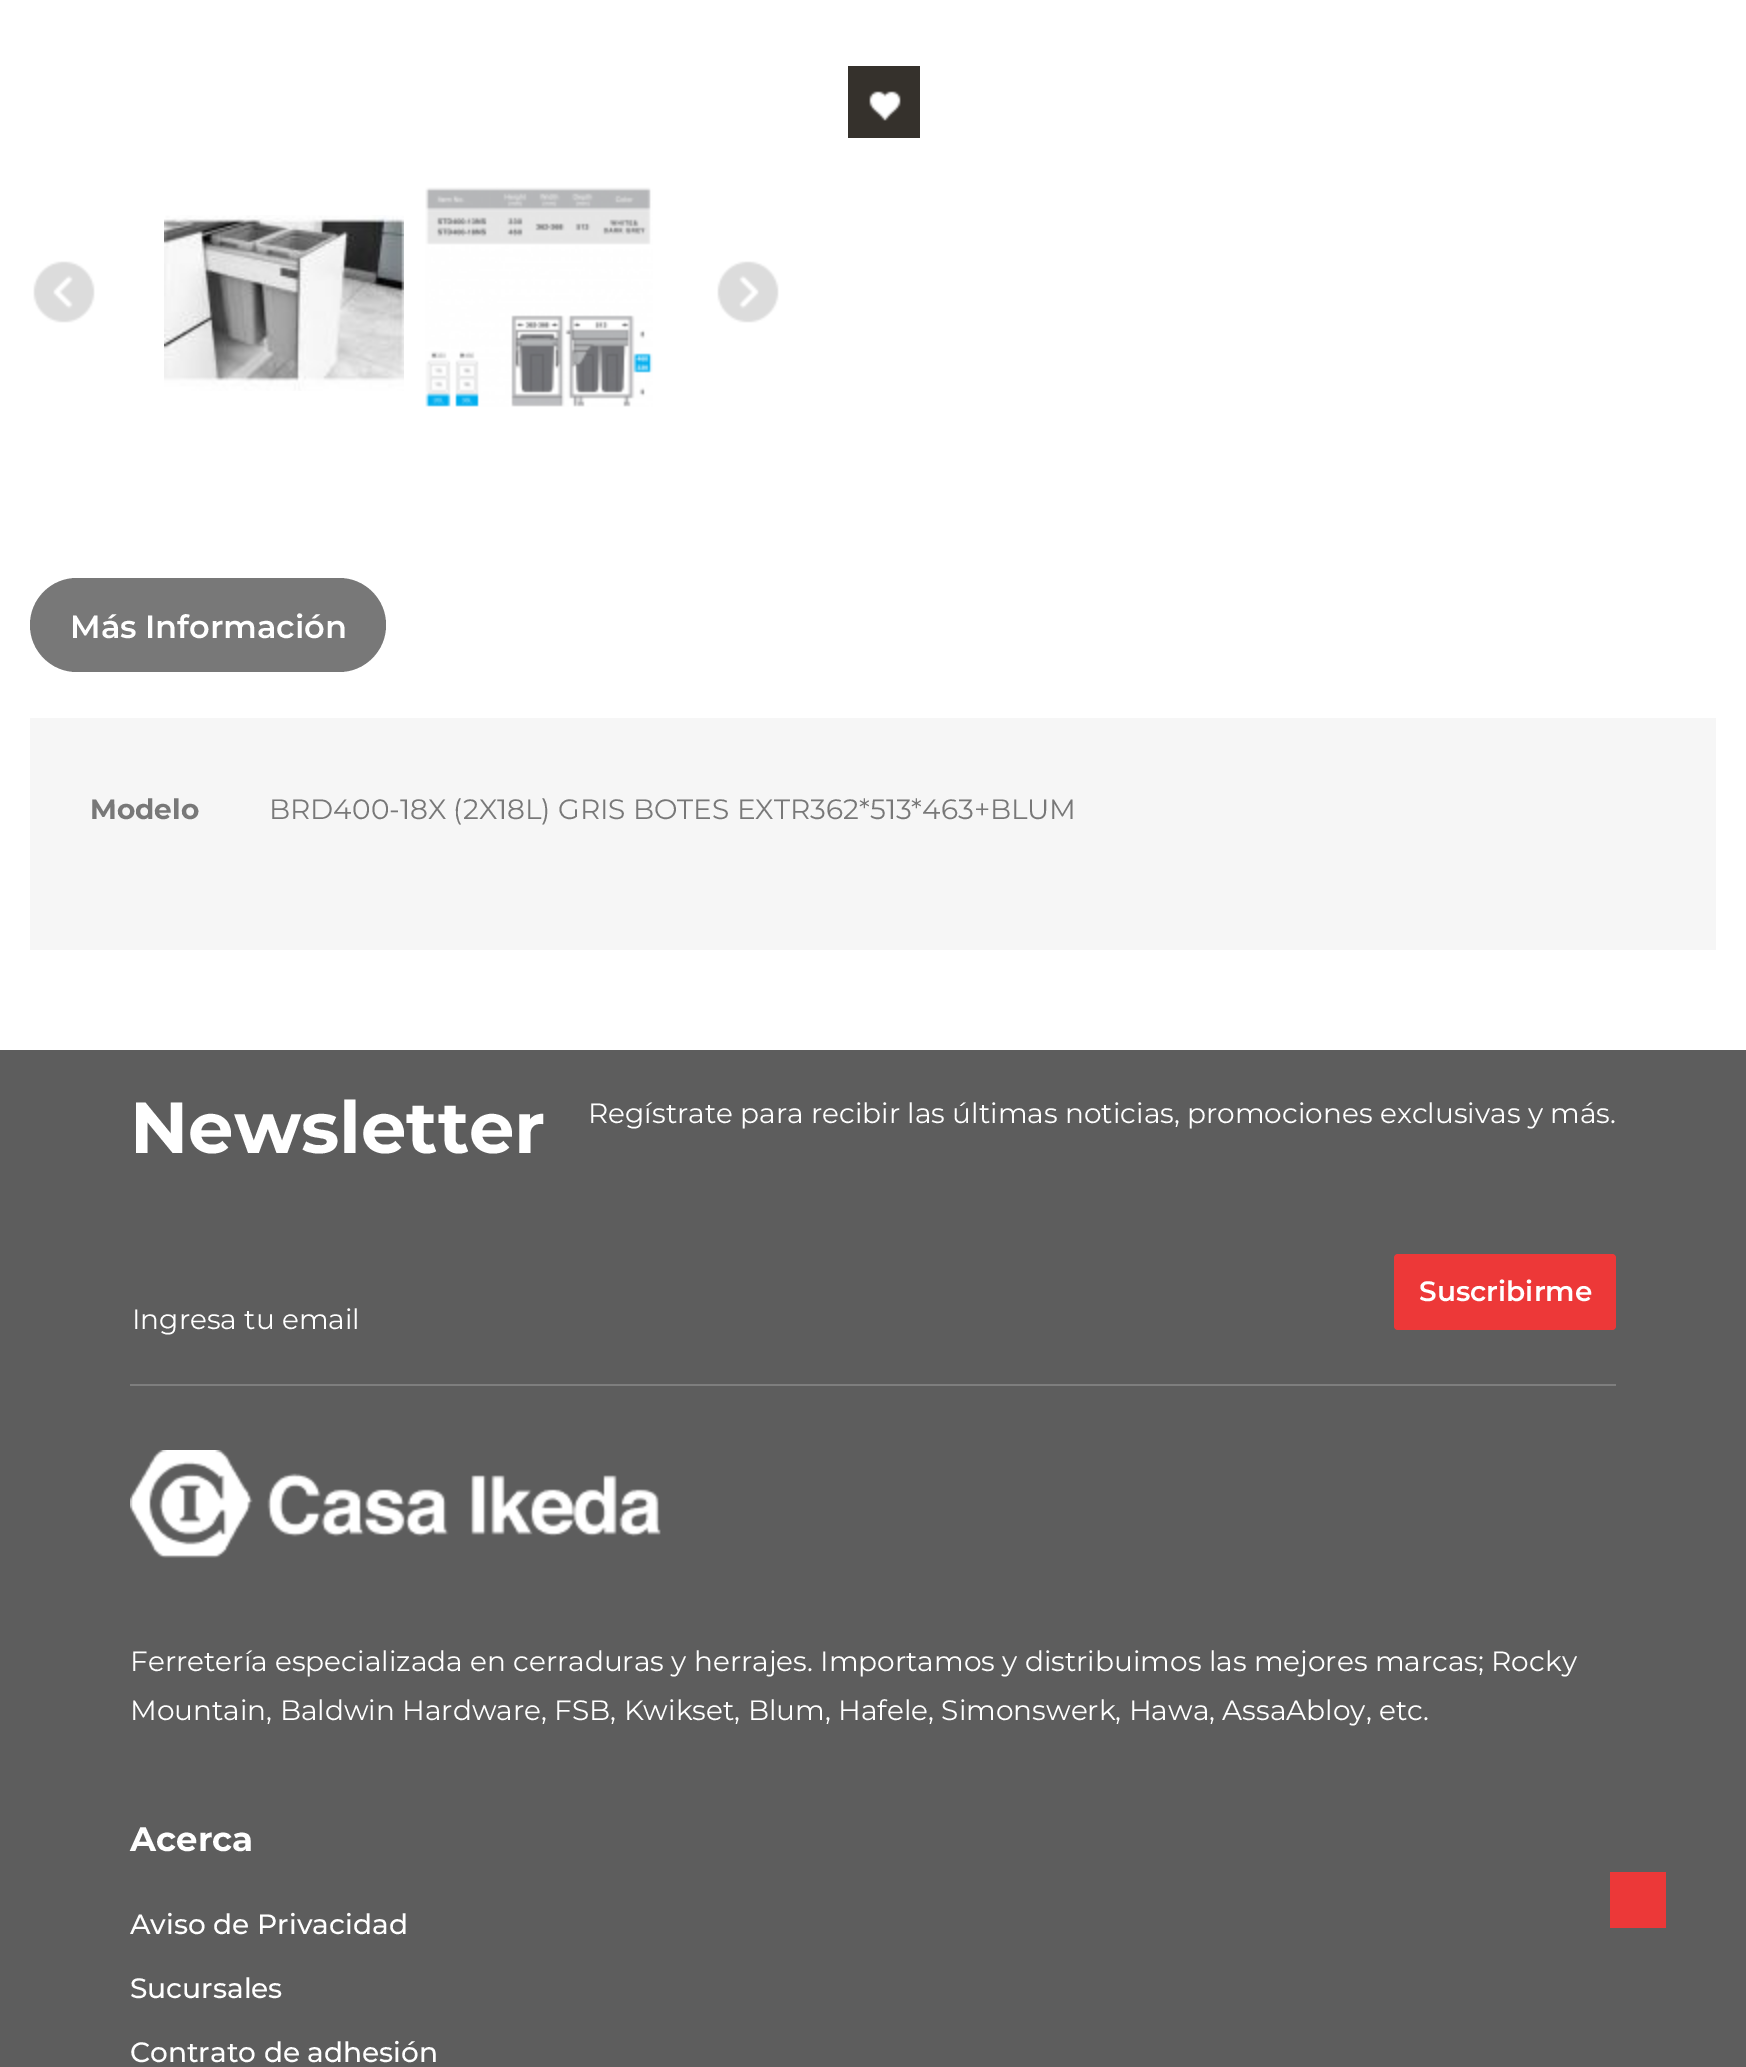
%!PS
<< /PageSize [1746 2067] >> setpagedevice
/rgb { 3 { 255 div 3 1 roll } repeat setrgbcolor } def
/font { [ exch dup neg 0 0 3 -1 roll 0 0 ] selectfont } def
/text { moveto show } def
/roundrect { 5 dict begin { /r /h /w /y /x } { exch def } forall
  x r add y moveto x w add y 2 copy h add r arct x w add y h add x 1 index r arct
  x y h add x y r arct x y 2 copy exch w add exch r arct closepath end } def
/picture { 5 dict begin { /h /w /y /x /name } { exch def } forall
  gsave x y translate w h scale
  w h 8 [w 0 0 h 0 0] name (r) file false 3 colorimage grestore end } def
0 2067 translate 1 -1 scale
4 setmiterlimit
255 255 255 rgb
0 0 1746 2067 rectfill
53 49 44 rgb
848 66 72 72 rectfill
(img_01.rgb) 869 91 32 30 picture
(img_02.rgb) 33 261 62 62 picture
(img_03.rgb) 164 215 240 176 picture
(img_04.rgb) 425 187 228 220 picture
(img_05.rgb) 717 261 62 62 picture
120 120 120 rgb
30 578 356 94 47 roundrect fill
246 246 246 rgb
30 718 1686 232 rectfill
93 93 93 rgb
0 1050 1746 1017 rectfill
126 126 126 rgb
130 1384 1486 2 rectfill
237 56 56 rgb
1394 1254 222 76 4 roundrect fill
(img_06.rgb) 130 1450 531 108 picture
236 56 56 rgb
1610 1872 56 56 rectfill
/Montserrat-SemiBold 32 font
255 255 255 rgb
(Más Información) 70 638 text
/Montserrat-Bold 28 font
120 120 120 rgb
(Modelo) 90 819 text
/Montserrat-Regular 28 font
(BRD400-18X \(2X18L\) GRIS BOTES EXTR362*513*463+BLUM) 269 819 text
/Montserrat-Bold 72 font
255 255 255 rgb
(Newsletter) 130 1153 text
/Montserrat-Regular 28 font
(Regístrate para recibir las últimas noticias, promociones exclusivas y más.) 588 1123 text
/Montserrat-SemiBold 28 font
(Suscribirme) 1419 1301 text
/Montserrat-Regular 28 font
(Ingresa tu email) 132 1329 text
(Ferretería especializada en cerraduras y herrajes. Importamos y distribuimos las mejores marcas; Rocky) 130 1671 text
(Mountain, Baldwin Hardware, FSB, Kwikset, Blum, Hafele, Simonswerk, Hawa, AssaAbloy, etc.) 130 1720 text
/Montserrat-Bold 34 font
(Acerca) 130 1851 text
/Montserrat-Medium 28 font
(Aviso de Privacidad) 130 1934 text
(Sucursales) 130 1998 text
(Contrato de adhesión) 130 2062 text
showpage
